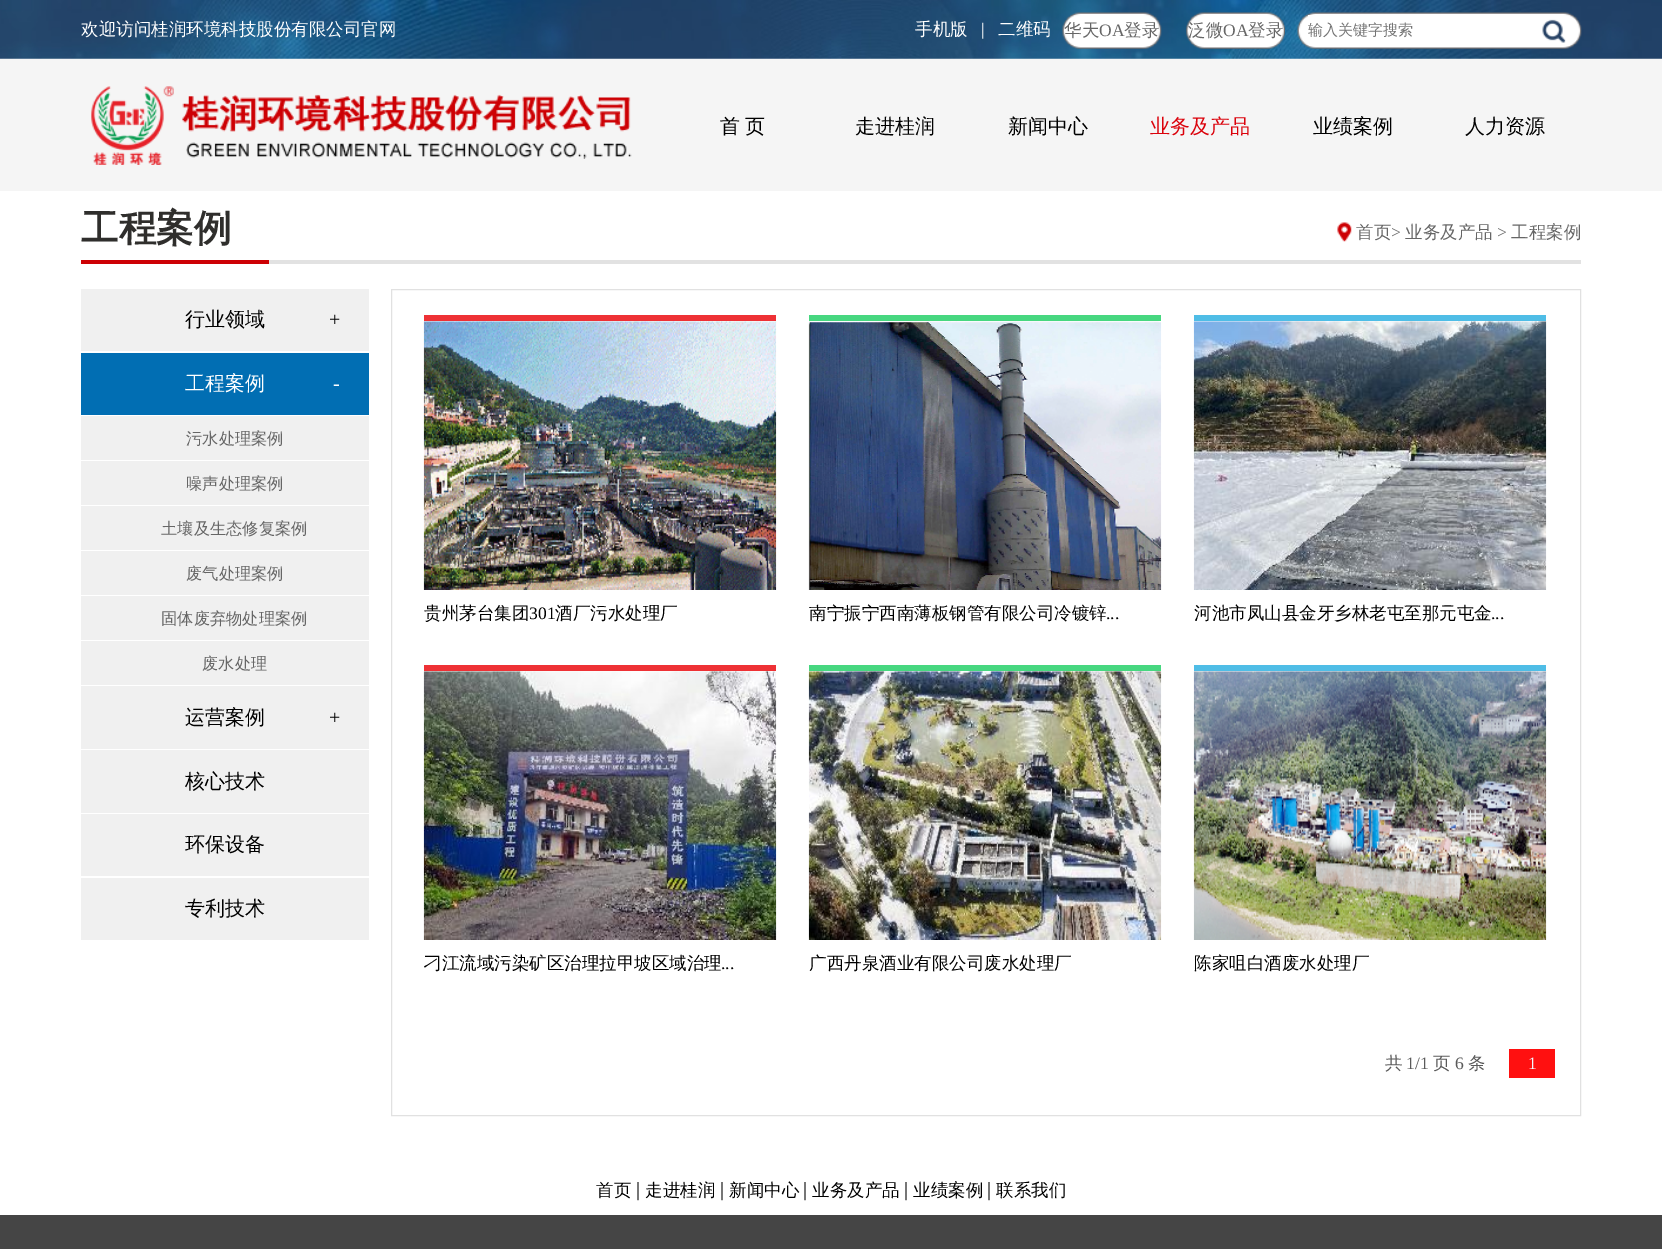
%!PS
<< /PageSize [1662 1249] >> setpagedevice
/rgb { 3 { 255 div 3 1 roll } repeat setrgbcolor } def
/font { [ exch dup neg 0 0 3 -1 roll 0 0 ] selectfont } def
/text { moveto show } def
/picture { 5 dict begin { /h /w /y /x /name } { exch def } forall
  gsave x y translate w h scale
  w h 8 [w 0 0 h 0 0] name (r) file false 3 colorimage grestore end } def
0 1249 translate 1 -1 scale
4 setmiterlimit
255 255 255 rgb
0 0 1662 1249 rectfill
245 245 245 rgb
0 58 1662 133 rectfill
(img_01.rgb) 0 0 1662 59 picture
(img_02.rgb) 1062 12 100 37 picture
(img_03.rgb) 1186 12 99 37 picture
(img_04.rgb) 1297 12 285 37 picture
255 255 255 rgb
1308 15 6 30 rectfill
(img_05.rgb) 91 86 541 79 picture
226 226 226 rgb
269 260 1312 4 rectfill
205 0 4 rgb
81 260 188 4 rectfill
(img_06.rgb) 1337 222 15 20 picture
240 240 240 rgb
81 289 288 62 rectfill
1 110 179 rgb
81 353 288 62 rectfill
240 240 240 rgb
81 416 288 44 rectfill
81 461 288 44 rectfill
81 506 288 44 rectfill
81 551 288 44 rectfill
81 596 288 44 rectfill
81 641 288 44 rectfill
81 686 288 63 rectfill
81 750 288 63 rectfill
81 814 288 62 rectfill
81 878 288 62 rectfill
225 225 225 rgb
391.5 289.5 1189 826 rectstroke
238 49 53 rgb
424 315 352 6 rectfill
(img_07.rgb) 423 321 354 269 picture
71 215 128 rgb
809 315 352 6 rectfill
(img_08.rgb) 808 321 354 269 picture
79 189 230 rgb
1194 315 352 6 rectfill
(img_09.rgb) 1193 321 354 269 picture
238 49 53 rgb
424 665 352 6 rectfill
(img_10.rgb) 423 671 354 269 picture
71 215 128 rgb
809 665 352 6 rectfill
(img_11.rgb) 808 671 354 269 picture
79 189 230 rgb
1194 665 352 6 rectfill
(img_12.rgb) 1193 671 354 269 picture
255 16 16 rgb
1509 1049 46 29 rectfill
69 69 69 rgb
0 1215 1662 34 rectfill
/WenQuanYiZenHei-Medium 17.5 font
255 255 255 rgb
(欢迎访问桂润环境科技股份有限公司官网) 81 35 text
(手机版) 915 35 text
/LiberationSerif-Regular 17.5 font
(|) 981 35 text
/WenQuanYiZenHei-Medium 17.5 font
(二维码) 998 35 text
102 102 102 rgb
(华天) 1064 36 text
/LiberationSerif-Regular 17.5 font
(OA) 1099 36 text
/WenQuanYiZenHei-Medium 17.5 font
(登录) 1124 36 text
(泛微) 1188 36 text
/LiberationSerif-Regular 17.5 font
(OA) 1223 36 text
/WenQuanYiZenHei-Medium 17.5 font
(登录) 1248 36 text
gsave
1308 20 218 21 rectclip
/WenQuanYiZenHei-Medium 15 font
117 117 117 rgb
(输入关键字搜索) 1308 35 text
grestore
/WenQuanYiZenHei-Medium 20 font
0 0 0 rgb
720 133 moveto -1 0 32 (首 页) widthshow
(走进桂润) 855 133 text
(新闻中心) 1008 133 text
219 2 11 rgb
(业务及产品) 1150 133 text
0 0 0 rgb
(业绩案例) 1313 133 text
(人力资源) 1465 133 text
/WenQuanYiZenHei-Bold 37.5 font
47 46 44 rgb
(工程案例) 81 241 text
/WenQuanYiZenHei-Medium 17.5 font
102 102 102 rgb
(首页) 1356 238 text
/LiberationSerif-Regular 17.5 font
(>) 1391 238 text
/WenQuanYiZenHei-Medium 17.5 font
(业务及产品) 1405 238 text
/LiberationSerif-Regular 17.5 font
(>) 1497 238 text
/WenQuanYiZenHei-Medium 17.5 font
(工程案例) 1511 238 text
/WenQuanYiZenHei-Medium 20 font
0 0 0 rgb
(行业领域) 185 326 text
/LiberationSerif-Regular 20 font
(+) 329 326 text
/WenQuanYiZenHei-Medium 20 font
255 255 255 rgb
(工程案例) 185 390 text
/LiberationSerif-Regular 20 font
(-) 333 390 text
/WenQuanYiZenHei-Medium 16.25 font
102 102 102 rgb
(污水处理案例) 186 444 text
(噪声处理案例) 186 489 text
(土壤及生态修复案例) 161 534 text
(废气处理案例) 186 579 text
(固体废弃物处理案例) 161 624 text
(废水处理) 202 669 text
/WenQuanYiZenHei-Medium 20 font
0 0 0 rgb
(运营案例) 185 724 text
/LiberationSerif-Regular 20 font
(+) 329 724 text
/WenQuanYiZenHei-Medium 20 font
(核心技术) 185 788 text
(环保设备) 185 851 text
(专利技术) 185 915 text
/WenQuanYiZenHei-Medium 17.5 font
(贵州茅台集团) 424 619 text
/LiberationSerif-Regular 17.5 font
(301) 529 619 text
/WenQuanYiZenHei-Medium 17.5 font
(酒厂污水处理厂) 555 619 text
(南宁振宁西南薄板钢管有限公司冷镀锌) 809 619 text
/LiberationSerif-Regular 17.5 font
(...) 1106 619 text
/WenQuanYiZenHei-Medium 17.5 font
(河池市凤山县金牙乡林老屯至那元屯金) 1194 619 text
/LiberationSerif-Regular 17.5 font
(...) 1491 619 text
/WenQuanYiZenHei-Medium 17.5 font
(刁江流域污染矿区治理拉甲坡区域治理) 424 969 text
/LiberationSerif-Regular 17.5 font
(...) 721 969 text
/WenQuanYiZenHei-Medium 17.5 font
(广西丹泉酒业有限公司废水处理厂) 809 969 text
(陈家咀白酒废水处理厂) 1194 969 text
90 90 90 rgb
(共) 1385 1069 text
/LiberationSerif-Regular 17.5 font
(1/1) 1406 1069 text
/WenQuanYiZenHei-Medium 17.5 font
(页) 1433 1069 text
/LiberationSerif-Regular 17.5 font
(6) 1455 1069 text
/WenQuanYiZenHei-Medium 17.5 font
(条) 1468 1069 text
/LiberationSerif-Regular 17.5 font
240 248 255 rgb
(1) 1528 1069 text
/WenQuanYiZenHei-Medium 17.5 font
0 0 0 rgb
(首页) 596 1196 text
/LiberationSerif-Regular 20 font
(|) 636 1196 text
/WenQuanYiZenHei-Medium 17.5 font
(走进桂润) 645 1196 text
/LiberationSerif-Regular 20 font
(|) 720 1196 text
/WenQuanYiZenHei-Medium 17.5 font
(新闻中心) 729 1196 text
/LiberationSerif-Regular 20 font
(|) 803 1196 text
/WenQuanYiZenHei-Medium 17.5 font
(业务及产品) 812 1196 text
/LiberationSerif-Regular 20 font
(|) 904 1196 text
/WenQuanYiZenHei-Medium 17.5 font
(业绩案例) 913 1196 text
/LiberationSerif-Regular 20 font
(|) 987 1196 text
/WenQuanYiZenHei-Medium 17.5 font
(联系我们) 996 1196 text
showpage
